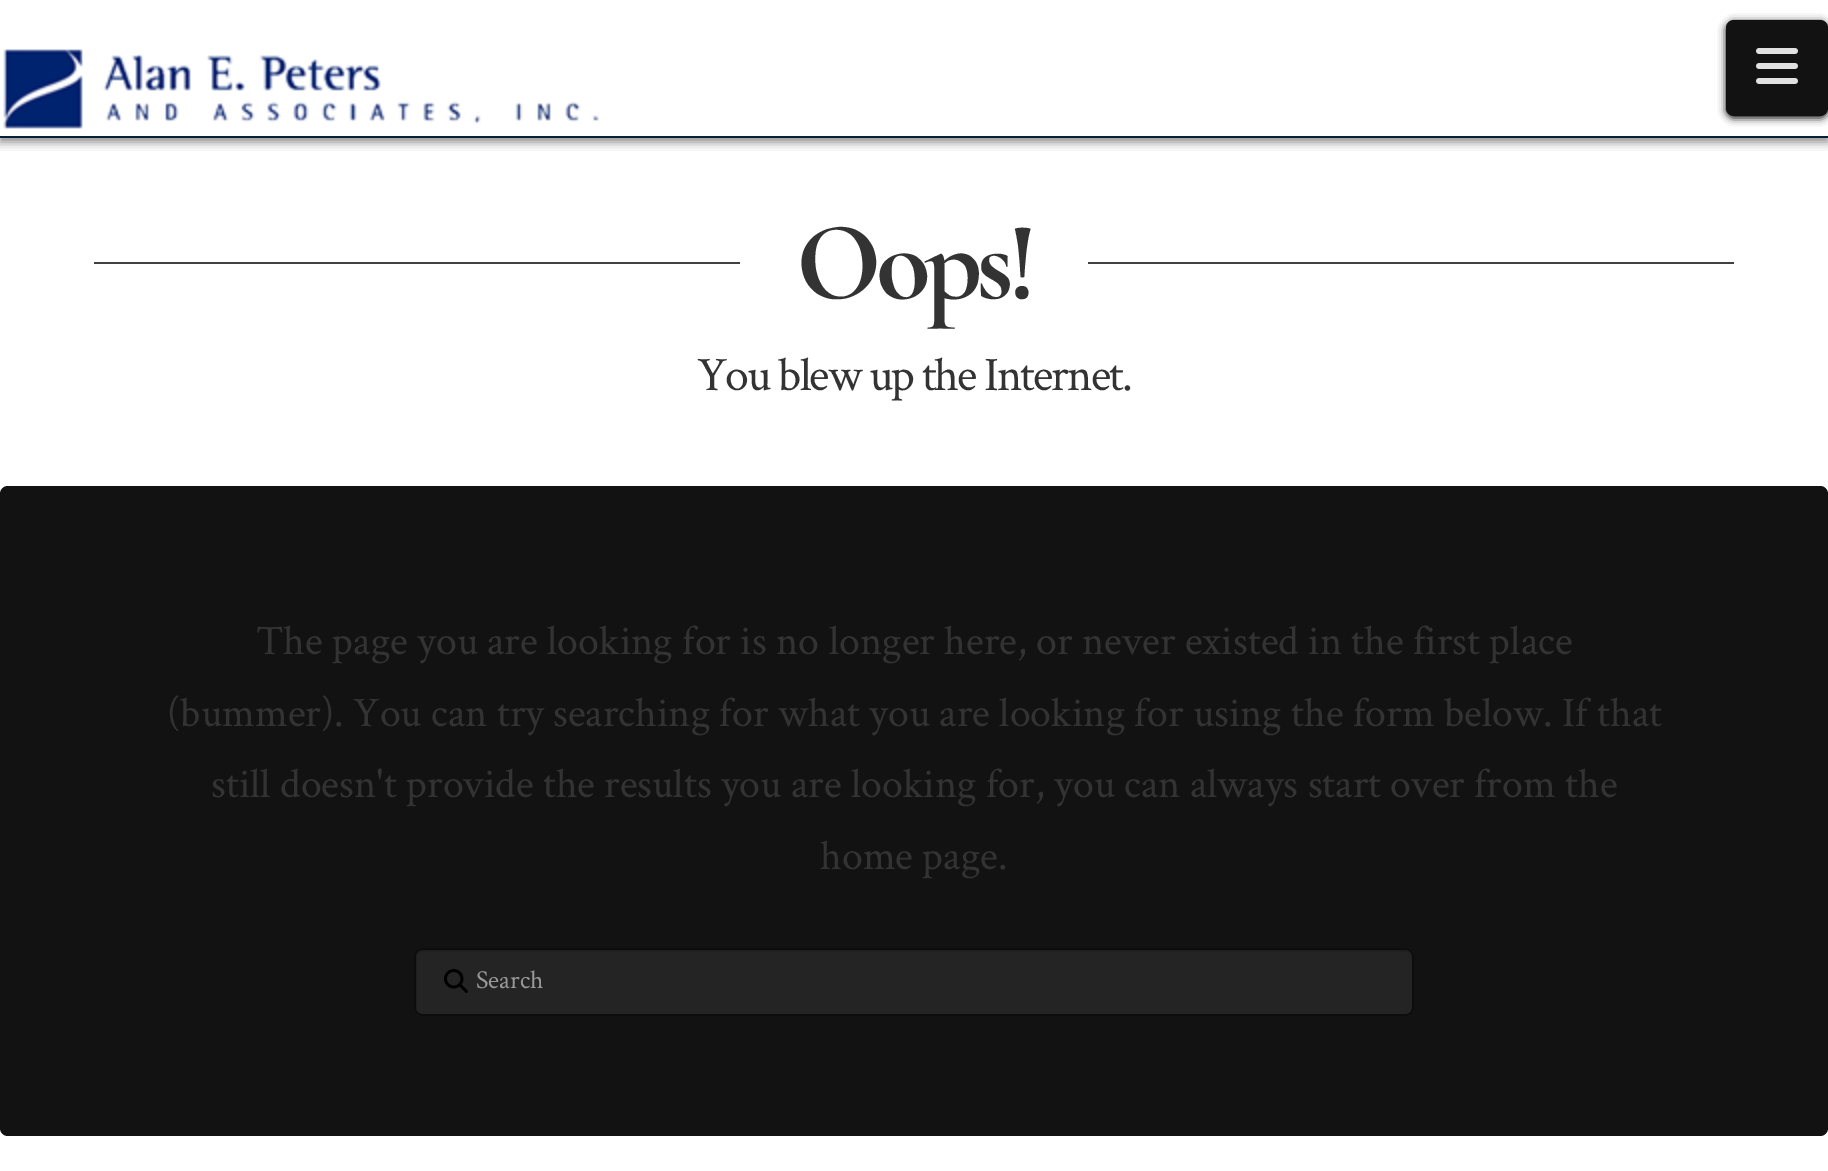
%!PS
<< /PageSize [1828 1171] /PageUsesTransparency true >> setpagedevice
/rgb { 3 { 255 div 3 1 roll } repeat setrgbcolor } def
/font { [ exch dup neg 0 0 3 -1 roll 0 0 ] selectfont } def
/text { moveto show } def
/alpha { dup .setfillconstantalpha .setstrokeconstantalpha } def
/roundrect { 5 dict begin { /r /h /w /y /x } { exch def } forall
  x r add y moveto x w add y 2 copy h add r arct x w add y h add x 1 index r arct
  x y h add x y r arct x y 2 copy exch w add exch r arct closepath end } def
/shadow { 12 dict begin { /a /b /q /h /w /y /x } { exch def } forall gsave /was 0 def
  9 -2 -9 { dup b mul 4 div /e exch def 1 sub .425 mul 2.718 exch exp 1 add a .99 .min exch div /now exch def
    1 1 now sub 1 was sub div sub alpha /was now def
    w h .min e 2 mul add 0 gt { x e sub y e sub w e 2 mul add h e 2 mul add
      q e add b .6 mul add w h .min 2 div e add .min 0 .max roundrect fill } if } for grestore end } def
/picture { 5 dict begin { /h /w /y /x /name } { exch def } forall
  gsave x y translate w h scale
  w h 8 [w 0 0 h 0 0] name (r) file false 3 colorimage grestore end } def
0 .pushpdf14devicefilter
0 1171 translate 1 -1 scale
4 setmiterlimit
255 255 255 rgb
0 0 1828 1171 rectfill
gsave
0 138 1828 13 rectclip
0 0 0 rgb
0 4 1828 138 0 5 0.47 shadow
grestore
9 31 54 rgb
0 136 1828 2 rectfill
(img_01.rgb) 3 49 596 80 picture
0 0 0 rgb
1726 22 102 96 8 4 1 shadow
18 18 18 rgb
1726 20 102 96 8 roundrect fill
(img_02.rgb) 1756 48 42 36 picture
64 64 64 rgb
94 262 646 2 rectfill
1088 262 646 2 rectfill
18 18 18 rgb
0 486 1828 650 8 roundrect fill
36 36 36 rgb
414 948 1000 68 8 roundrect fill
33 33 33 rgb
422 952 moveto 984 0 rlineto 3 0 6 3 6 6 rcurveto 0 -4 -1 -8 -6 -8 rcurveto -984 0 rlineto -5 0 -6 4 -6 8 rcurveto 0 -3 3 -6 6 -6 rcurveto closepath fill
13 13 13 rgb
2 setlinewidth
415 949 998 66 7 roundrect stroke
(img_03.rgb) 444 969 24 24 picture
/CormorantGaramond-Bold 112 font
51 51 51 rgb
796 298 moveto -6 0 (Oops!) ashow
/CrimsonText-Regular 48 font
697 390 moveto -2 0 (You blew up the Internet.) ashow
/CrimsonText-Regular 42 font
(The page you are looking for is no longer here, or never existed in the first place) 256 654 text
(\(bummer\). You can try searching for what you are looking for using the form below. If that) 167 726 text
(still doesn't provide the results you are looking for, you can always start over from the) 211 797 text
(home page.) 820 869 text
/CrimsonText-Regular 26 font
153 153 153 rgb
(Search) 476 988 text
.poppdf14devicefilter showpage
